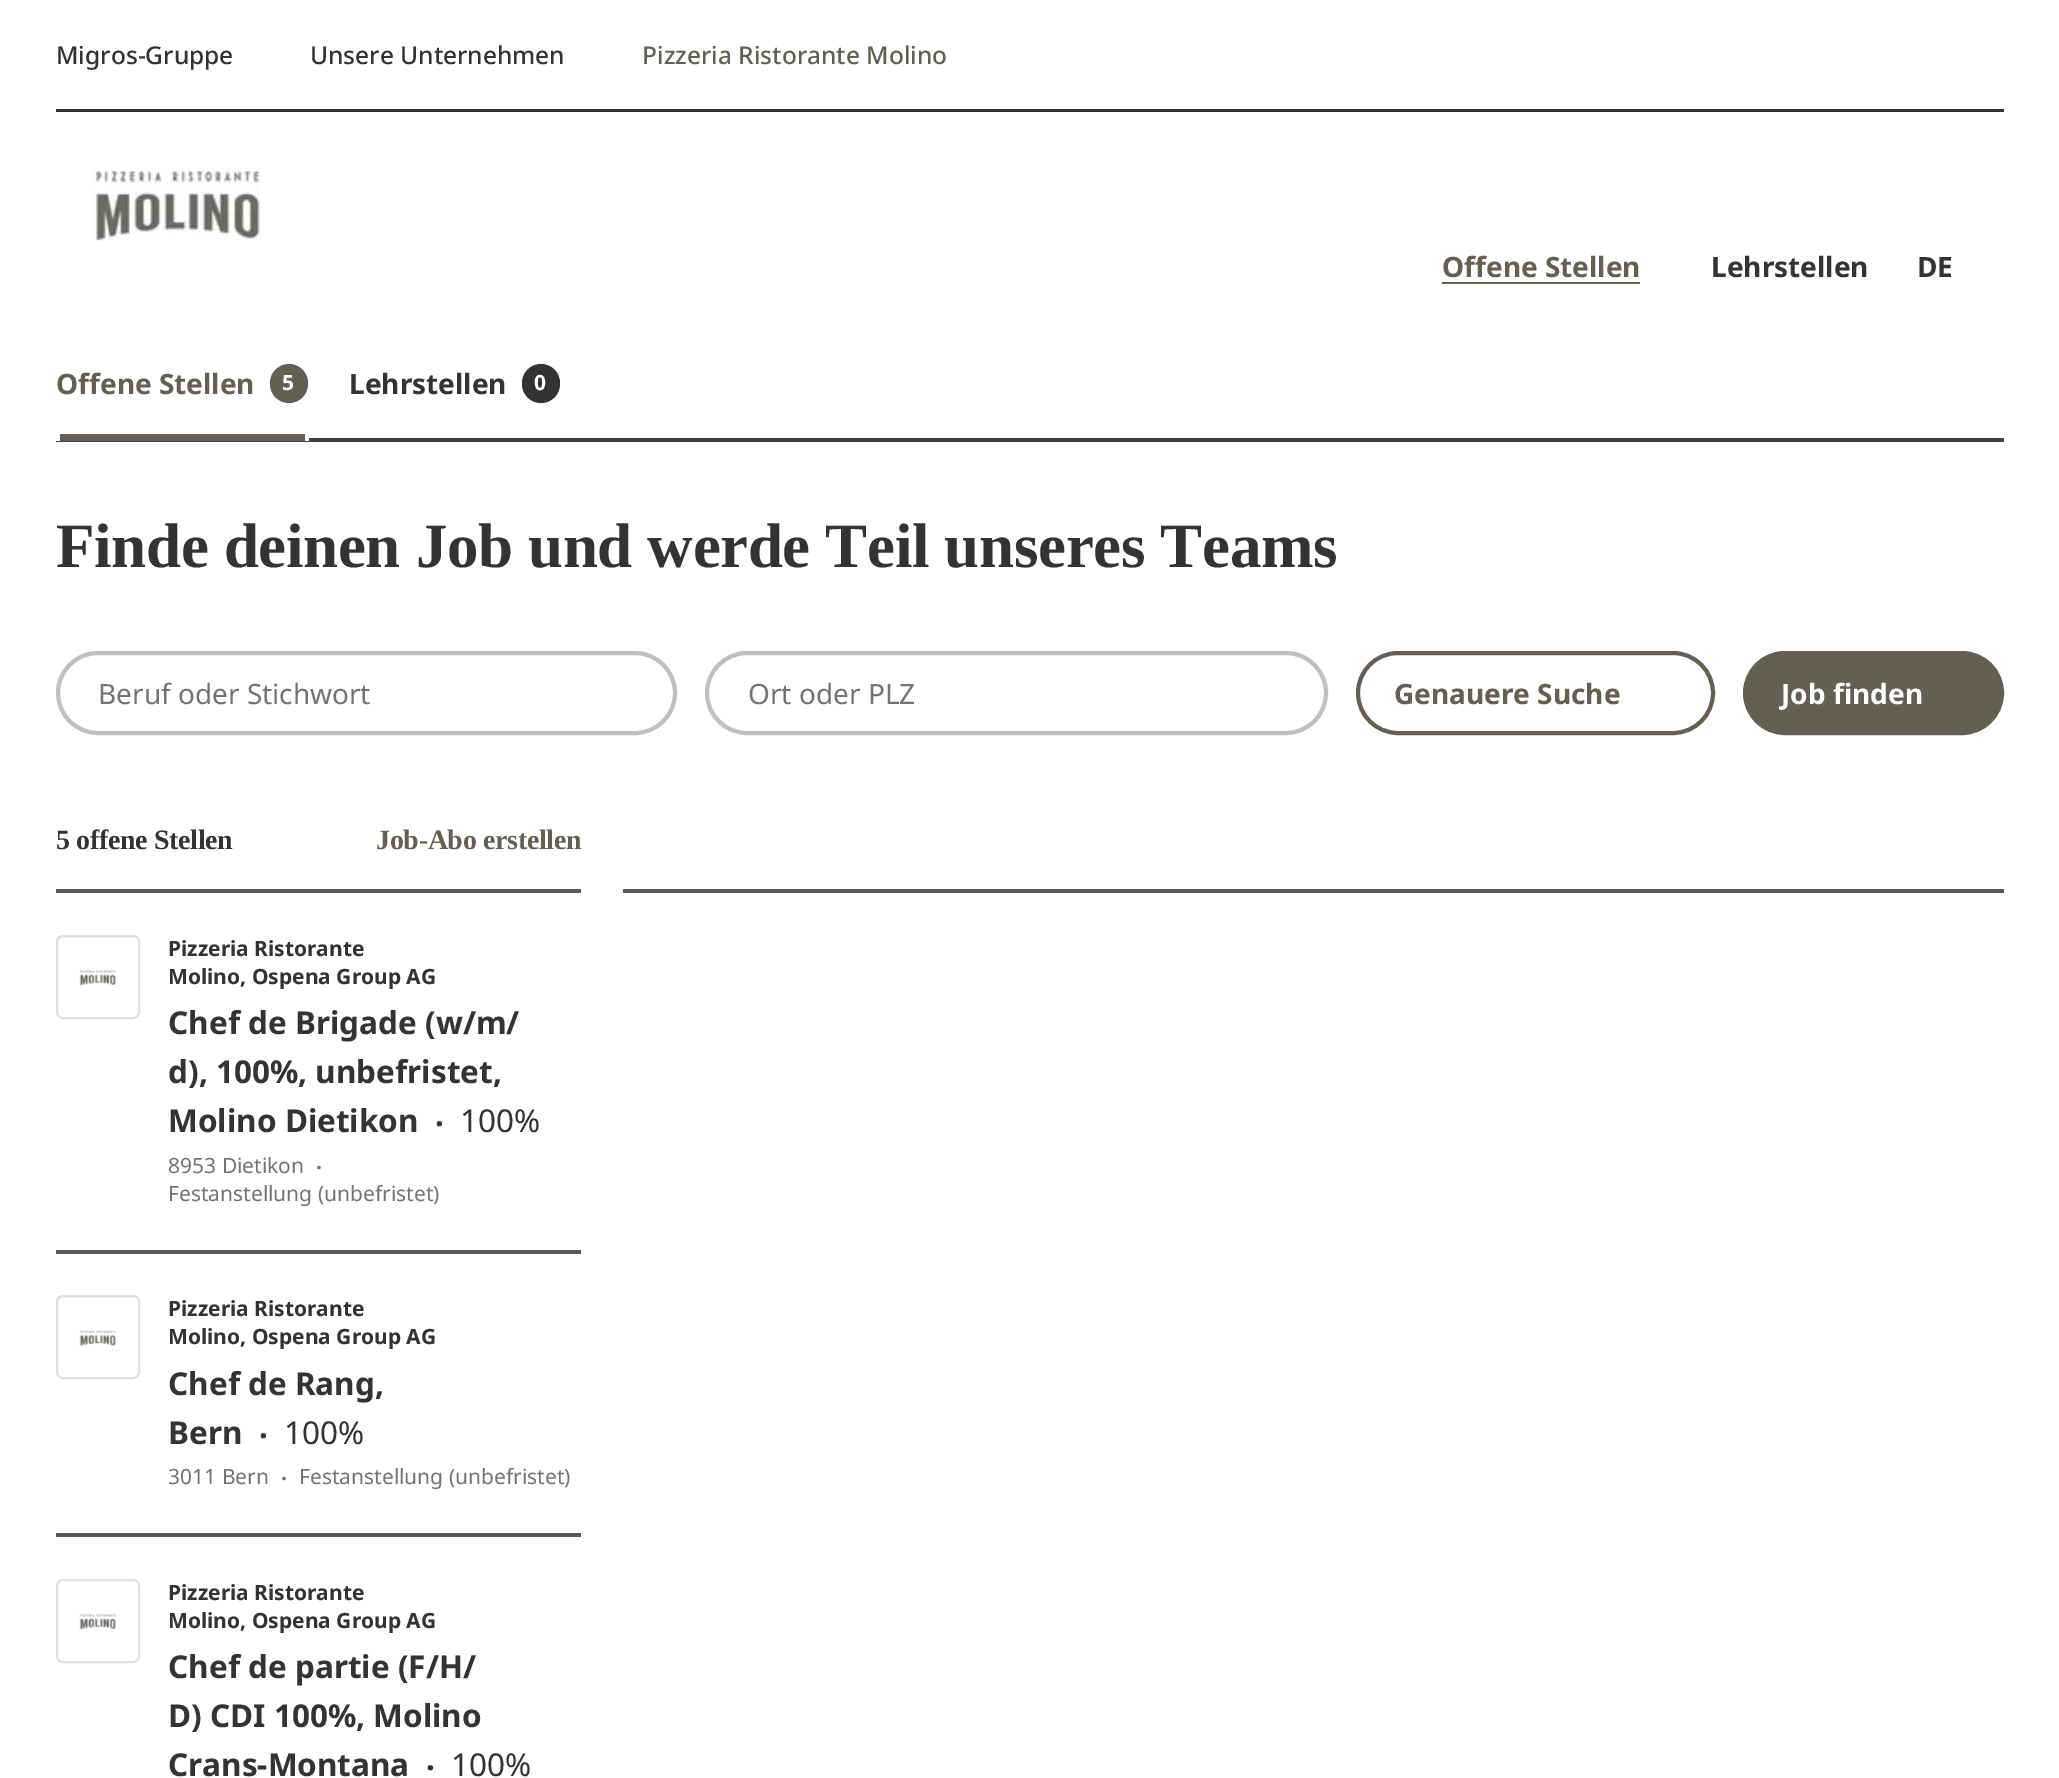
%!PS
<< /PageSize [2059 1778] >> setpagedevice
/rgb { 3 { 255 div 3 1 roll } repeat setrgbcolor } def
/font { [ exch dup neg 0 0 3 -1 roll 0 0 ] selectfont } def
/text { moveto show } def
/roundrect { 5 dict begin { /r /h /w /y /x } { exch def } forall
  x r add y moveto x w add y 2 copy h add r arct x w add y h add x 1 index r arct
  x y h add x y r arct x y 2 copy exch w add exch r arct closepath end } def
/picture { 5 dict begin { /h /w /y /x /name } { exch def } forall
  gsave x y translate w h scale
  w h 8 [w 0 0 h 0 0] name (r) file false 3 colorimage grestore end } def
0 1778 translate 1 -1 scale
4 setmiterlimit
255 255 255 rgb
0 0 2059 1778 rectfill
51 51 51 rgb
56 109 1948 3 rectfill
(img_01.rgb) 91 170 169 71 picture
99 95 83 rgb
1442 282 198 2 rectfill
64 64 64 rgb
56 438 1948 4 rectfill
99 95 83 rgb
270 364 38 39 19 roundrect fill
51 51 51 rgb
522 364 38 39 19 roundrect fill
99 95 83 rgb
60 434 245 7 rectfill
255 255 255 rgb
305 434 4 7 rectfill
56 434 4 7 rectfill
191 191 191 rgb
4 setlinewidth
58 653 617 80 40 roundrect stroke
707 653 619 80 40 roundrect stroke
99 95 83 rgb
1358 653 355 80 40 roundrect stroke
1745 653 257 80 40 roundrect gsave fill grestore
stroke
89 89 89 rgb
623 889 1381 4 rectfill
56 889 525 4 rectfill
56 1250 525 4 rectfill
224 224 224 rgb
2 setlinewidth
57 936 82 82 6 roundrect stroke
(img_02.rgb) 79 969 37 17 picture
89 89 89 rgb
56 1533 525 4 rectfill
224 224 224 rgb
57 1296 82 82 6 roundrect stroke
(img_03.rgb) 79 1330 37 17 picture
57 1580 82 82 6 roundrect stroke
(img_02.rgb) 79 1613 37 17 picture
/NotoSans-Medium 24.5 font
51 51 51 rgb
(Migros-Gruppe) 56 64 text
(Unsere Unternehmen) 310 64 text
99 95 83 rgb
(Pizzeria Ristorante Molino) 642 64 text
/NotoSans-Bold 28 font
(Offene Stellen) 1442 277 text
51 51 51 rgb
(Lehrstellen) 1711 277 text
(DE) 1917 277 text
99 95 83 rgb
(Offene Stellen) 56 394 text
/NotoSans-Bold 21 font
255 255 255 rgb
(5) 282 390 text
/NotoSans-Bold 28 font
51 51 51 rgb
(Lehrstellen) 349 394 text
/NotoSans-Bold 21 font
255 255 255 rgb
(0) 534 390 text
/LiberationSerif-Bold 63 font
51 51 51 rgb
56 567 moveto -0.35 0 (Finde deinen Job und werde Teil unseres Teams) ashow
/NotoSans-Regular 28 font
115 115 115 rgb
(Beruf oder Stichwort) 98 704 text
(Ort oder PLZ) 748 704 text
/NotoSans-Bold 28 font
99 95 83 rgb
(Genauere Suche) 1394 704 text
255 255 255 rgb
(Job finden) 1781 704 text
/LiberationSerif-Bold 28 font
51 51 51 rgb
56 849 moveto -0.35 0 (5 offene Stellen) ashow
99 95 83 rgb
376 849 moveto -0.35 0 (Job-Abo erstellen) ashow
/NotoSans-Bold 21 font
51 51 51 rgb
(Pizzeria Ristorante) 168 956 text
(Molino, Ospena Group AG) 168 984 text
/NotoSans-Bold 31.5 font
(Chef de Brigade \(w/m/) 168 1034 text
(d\), 100%, unbefristet,) 168 1083 text
(Molino Dietikon) 168 1132 text
(‧) 435 1132 text
/NotoSans-Regular 31.5 font
(100%) 460 1132 text
/NotoSans-Regular 21 font
115 115 115 rgb
(8953 Dietikon) 168 1173 text
/NotoSans-Bold 21 font
(‧) 316 1173 text
/NotoSans-Regular 21 font
(Festanstellung \(unbefristet\)) 168 1201 text
/NotoSans-Bold 21 font
51 51 51 rgb
(Pizzeria Ristorante) 168 1316 text
(Molino, Ospena Group AG) 168 1344 text
/NotoSans-Bold 31.5 font
(Chef de Rang,) 168 1395 text
(Bern) 168 1444 text
(‧) 259 1444 text
/NotoSans-Regular 31.5 font
(100%) 284 1444 text
/NotoSans-Regular 21 font
115 115 115 rgb
(3011 Bern) 168 1484 text
/NotoSans-Bold 21 font
(‧) 281 1484 text
/NotoSans-Regular 21 font
(Festanstellung \(unbefristet\)) 299 1484 text
/NotoSans-Bold 21 font
51 51 51 rgb
(Pizzeria Ristorante) 168 1600 text
(Molino, Ospena Group AG) 168 1628 text
/NotoSans-Bold 31.5 font
(Chef de partie \(F/H/) 168 1678 text
(D\) CDI 100%, Molino) 168 1727 text
(Crans-Montana) 168 1776 text
(‧) 426 1776 text
/NotoSans-Regular 31.5 font
(100%) 451 1776 text
showpage
